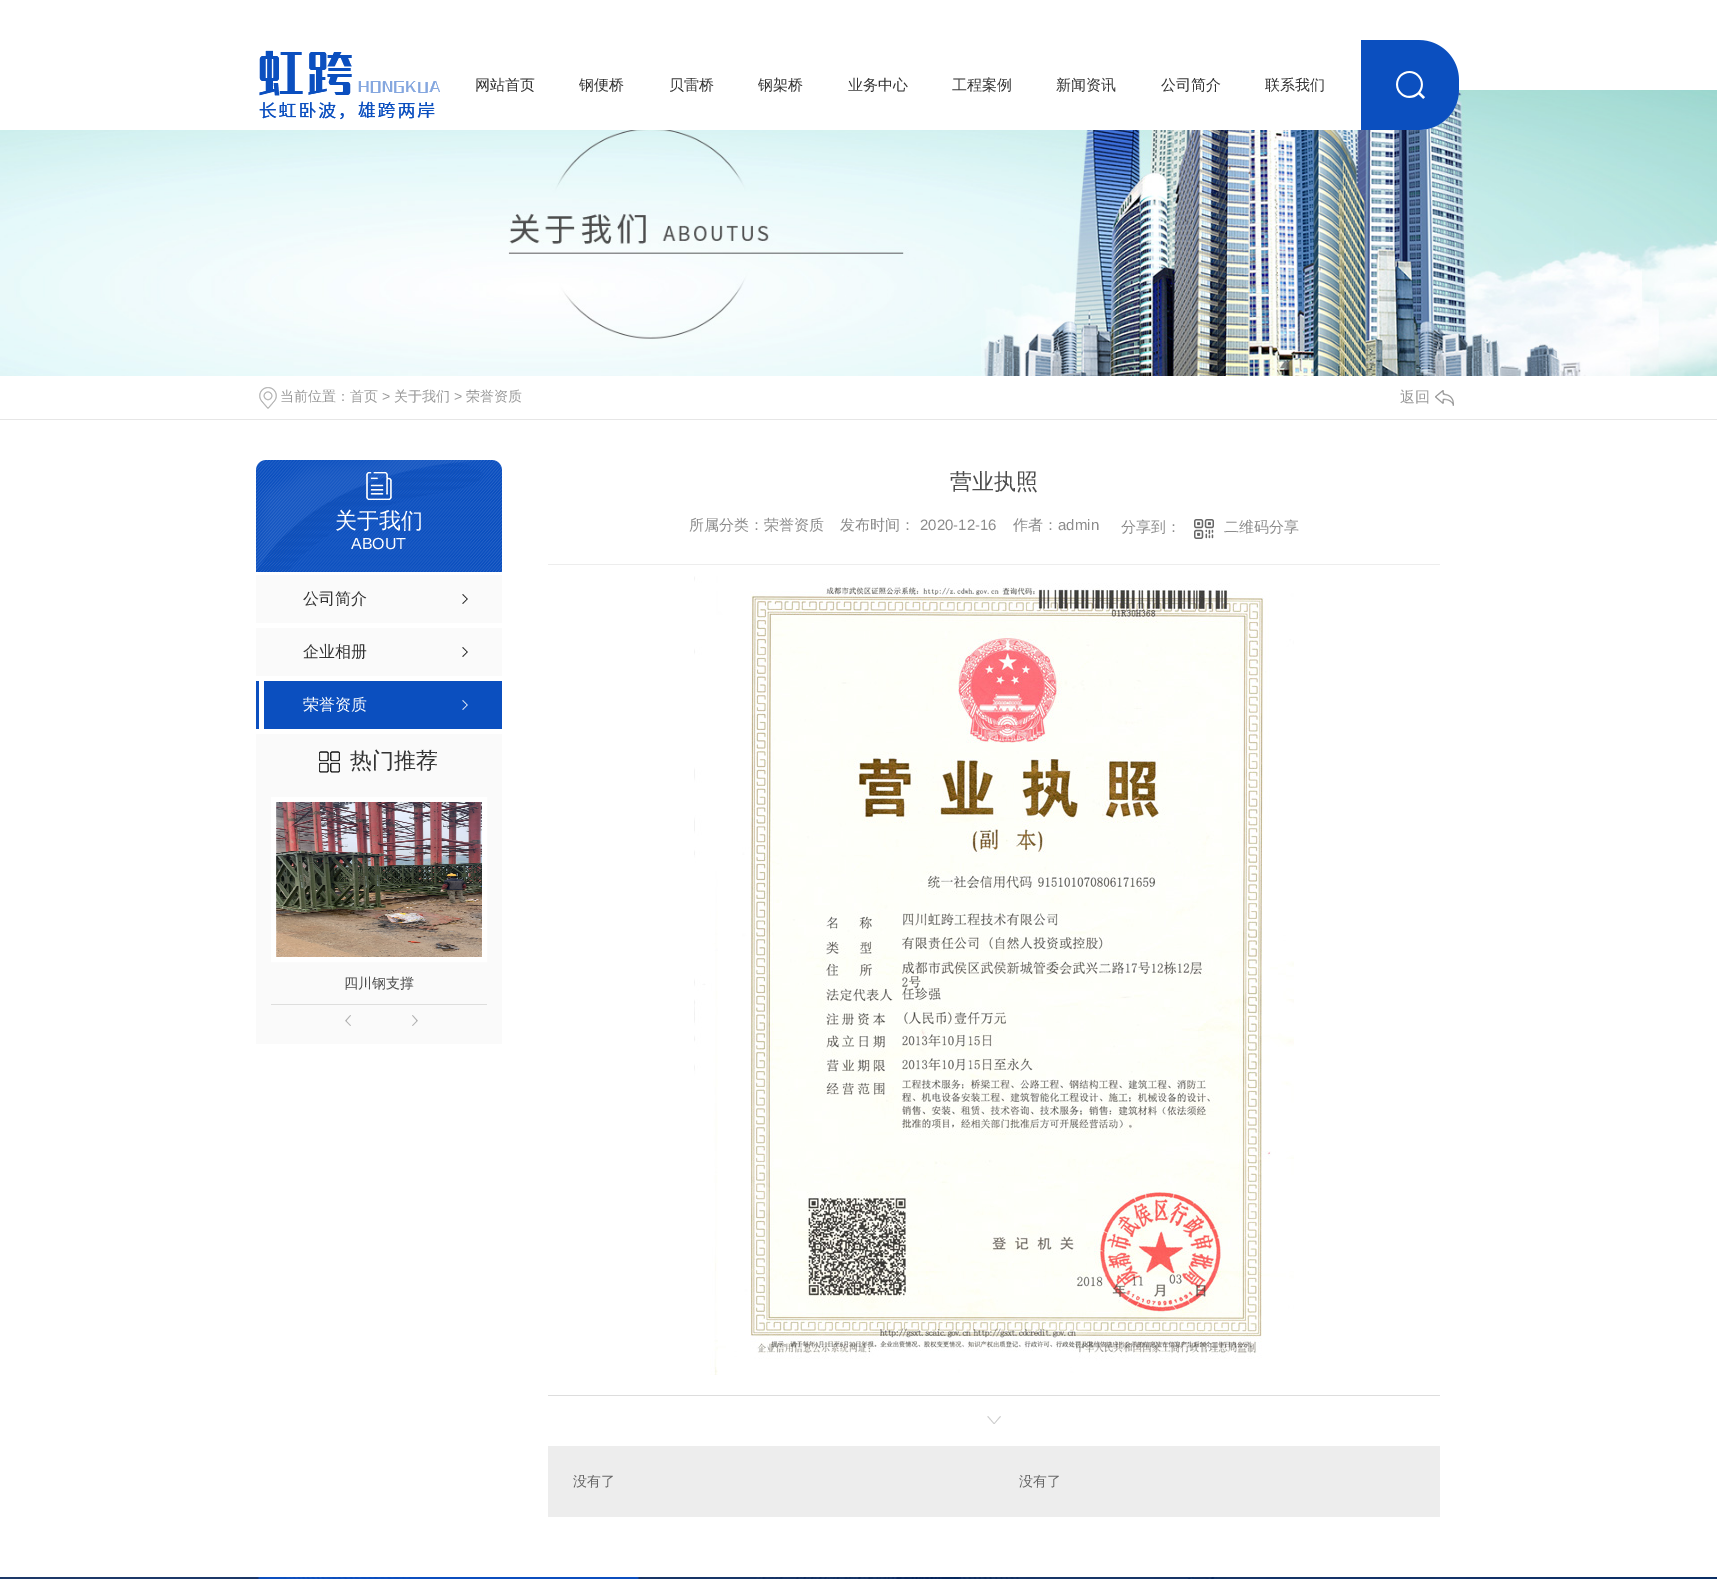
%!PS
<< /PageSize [1717 1579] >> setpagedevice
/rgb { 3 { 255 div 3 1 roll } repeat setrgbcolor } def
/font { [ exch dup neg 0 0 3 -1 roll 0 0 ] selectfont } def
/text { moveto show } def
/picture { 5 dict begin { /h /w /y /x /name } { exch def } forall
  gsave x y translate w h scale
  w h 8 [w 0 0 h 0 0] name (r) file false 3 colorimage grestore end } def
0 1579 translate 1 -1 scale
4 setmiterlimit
255 255 255 rgb
0 0 1717 1579 rectfill
(img_04.rgb) 0 90 1717 286 picture
(img_01.rgb) 0 90 1459 40 picture
(img_02.rgb) 259 50 181 70 picture
(img_03.rgb) 1361 40 98 90 picture
230 230 230 rgb
0 419 1717 1 rectfill
(img_05.rgb) 259 387 18 22 picture
(img_06.rgb) 1435 390 19 16 picture
11 79 191 rgb
266 460 moveto 226 0 rlineto 5.5 0 10 4.5 10 10 rcurveto 0 102 rlineto -246 0 rlineto 0 -102 rlineto 0 -5.5 4.5 -10 10 -10 rcurveto closepath fill
(img_07.rgb) 256 460 246 112 picture
(img_08.rgb) 366 472 26 28 picture
250 250 250 rgb
256 575 246 48 rectfill
(img_09.rgb) 462 594 6 10 picture
256 628 246 48 rectfill
(img_09.rgb) 462 647 6 10 picture
11 79 191 rgb
256 681 246 48 rectfill
255 255 255 rgb
259 681 5 48 rectfill
(img_10.rgb) 462 700 6 10 picture
250 250 250 rgb
256 734 246 310 rectfill
(img_11.rgb) 319 751 21 22 picture
255 255 255 rgb
5 setlinewidth
273.5 799.5 211 160 rectstroke
(img_12.rgb) 276 802 206 155 picture
222 222 221 rgb
271 1004 216 1 rectfill
(img_13.rgb) 345 1015 6 11 picture
(img_14.rgb) 412 1015 6 11 picture
(img_15.rgb) 1194 519 20 20 picture
237 237 237 rgb
548 564 892 1 rectfill
221 221 221 rgb
548 1395 892 1 rectfill
(img_16.rgb) 694 576 600 799 picture
(img_17.rgb) 987 1416 14 8 picture
237 237 237 rgb
548 1446 892 71 rectfill
(img_18.rgb) 0 1577 1717 2 picture
/WenQuanYiZenHei-Medium 15 font
51 51 51 rgb
(网站首页) 475 90 text
(钢便桥) 579 90 text
(贝雷桥) 669 90 text
(钢架桥) 758 90 text
(业务中心) 848 90 text
(工程案例) 952 90 text
(新闻资讯) 1056 90 text
(公司简介) 1161 90 text
(联系我们) 1265 90 text
/WenQuanYiZenHei-Medium 14 font
153 153 153 rgb
(当前位置：首页) 280 401 text
/LiberationSans-Regular 14 font
(>) 382 401 text
/WenQuanYiZenHei-Medium 14 font
(关于我们) 394 401 text
/LiberationSans-Regular 14 font
(>) 454 401 text
/WenQuanYiZenHei-Medium 14 font
(荣誉资质) 466 401 text
/WenQuanYiZenHei-Medium 15 font
(返回) 1400 402 text
/WenQuanYiZenHei-Medium 22 font
255 255 255 rgb
(关于我们) 335 528 text
/LiberationSans-Regular 16 font
(ABOUT) 351 549 text
/WenQuanYiZenHei-Medium 16 font
51 51 51 rgb
(公司简介) 303 604 text
(企业相册) 303 657 text
255 255 255 rgb
(荣誉资质) 303 710 text
/WenQuanYiZenHei-Medium 22 font
51 51 51 rgb
(热门推荐) 350 768 text
/WenQuanYiZenHei-Medium 14 font
76 76 76 rgb
(四川钢支撑) 344 988 text
/WenQuanYiZenHei-Medium 22 font
(营业执照) 950 489 text
/WenQuanYiZenHei-Medium 15 font
140 140 140 rgb
(所属分类：荣誉资质) 689 530 text
(发布时间：) 840 530 text
/LiberationSans-Regular 15 font
(2020-12-16) 920 530 text
/WenQuanYiZenHei-Medium 15 font
(作者：) 1013 530 text
/LiberationSans-Regular 15 font
(admin) 1058 530 text
/WenQuanYiZenHei-Medium 15 font
(分享到：) 1121 532 text
(二维码分享) 1224 532 text
/WenQuanYiZenHei-Medium 14 font
102 102 102 rgb
(没有了) 573 1486 text
(没有了) 1019 1486 text
showpage
